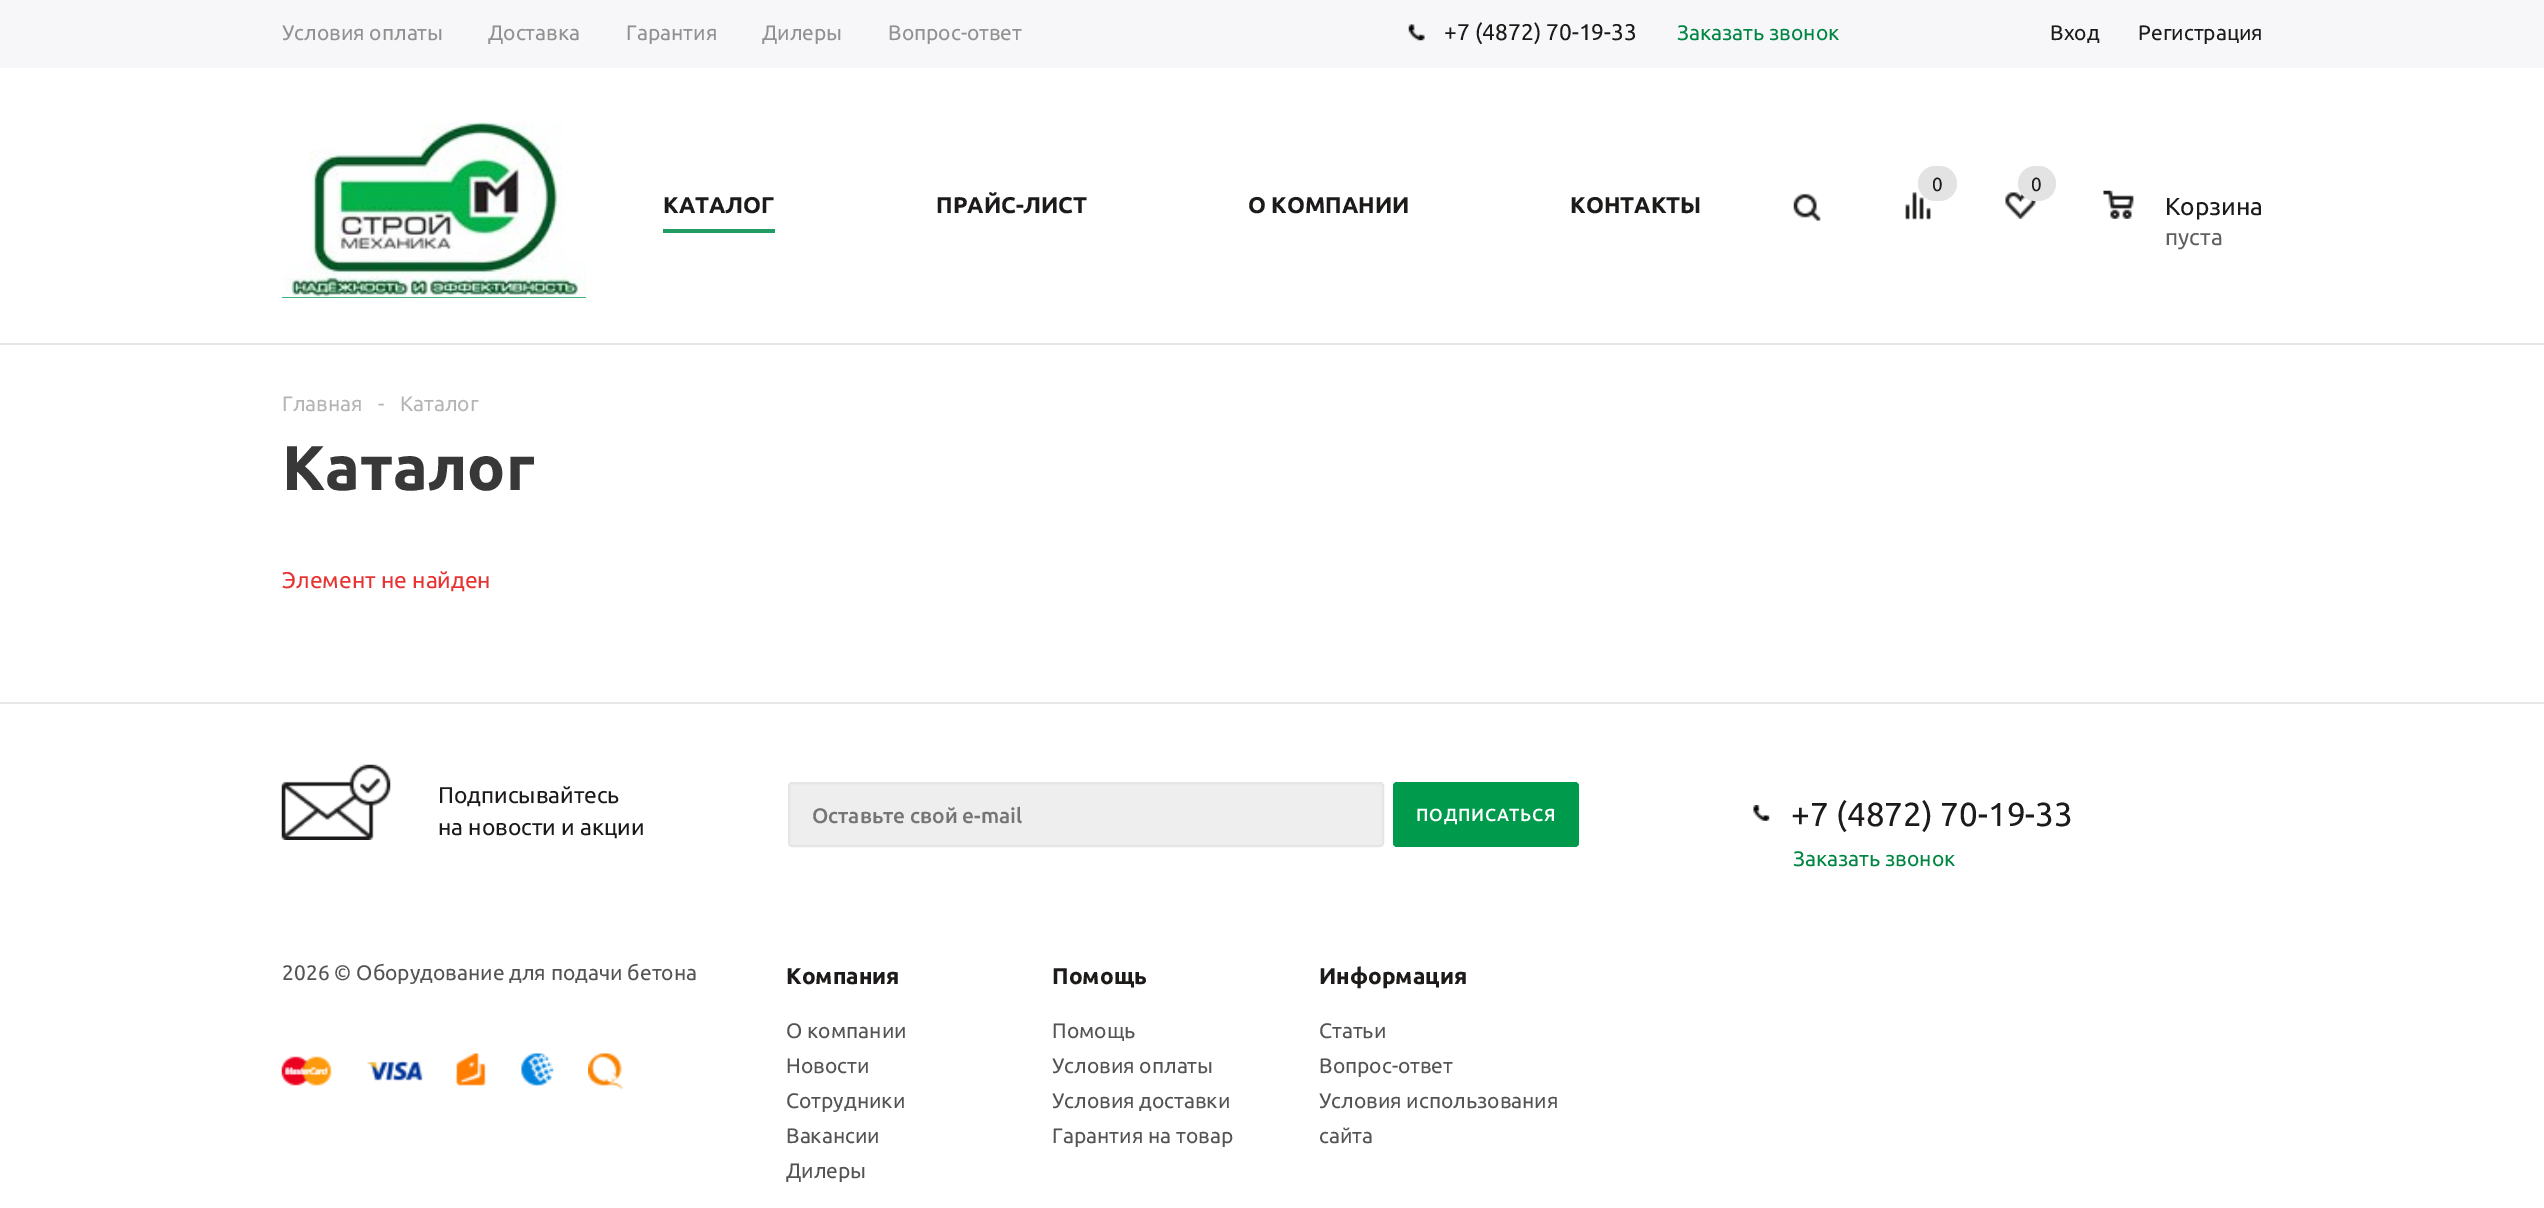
%!PS
<< /PageSize [2544 1208] >> setpagedevice
/rgb { 3 { 255 div 3 1 roll } repeat setrgbcolor } def
/font { [ exch dup neg 0 0 3 -1 roll 0 0 ] selectfont } def
/text { moveto show } def
/roundrect { 5 dict begin { /r /h /w /y /x } { exch def } forall
  x r add y moveto x w add y 2 copy h add r arct x w add y h add x 1 index r arct
  x y h add x y r arct x y 2 copy exch w add exch r arct closepath end } def
/picture { 5 dict begin { /h /w /y /x /name } { exch def } forall
  gsave x y translate w h scale
  w h 8 [w 0 0 h 0 0] name (r) file false 3 colorimage grestore end } def
0 1208 translate 1 -1 scale
4 setmiterlimit
255 255 255 rgb
0 0 2544 1208 rectfill
247 247 249 rgb
0 0 2544 68 rectfill
(img_01.rgb) 1408 24 17 17 picture
229 229 229 rgb
0 343 2544 2 rectfill
0 154 76 rgb
282 297 304 1 rectfill
(img_02.rgb) 282 122 304 176 picture
33 156 99 rgb
663 229 112 4 rectfill
(img_03.rgb) 1793 193 28 28 picture
(img_04.rgb) 1905 192 26 28 picture
227 227 227 rgb
1918 166 39 35 17.5 roundrect fill
(img_05.rgb) 2005 192 31 27 picture
2018 166 38 35 17.5 roundrect fill
(img_06.rgb) 2103 190 31 29 picture
231 231 231 rgb
0 702 2544 2 rectfill
(img_07.rgb) 281 764 110 76 picture
238 238 238 rgb
789 783 594 63 3 roundrect gsave fill grestore
229 229 229 rgb
2 setlinewidth
stroke
0 154 76 rgb
1393 782 186 65 4 roundrect fill
(img_08.rgb) 1753 805 17 16 picture
(img_09.rgb) 281 1056 51 31 picture
(img_10.rgb) 367 1060 56 21 picture
(img_11.rgb) 455 1053 31 33 picture
(img_12.rgb) 521 1053 33 34 picture
(img_13.rgb) 588 1053 35 36 picture
/Ubuntu-Regular 21 font
145 145 145 rgb
(Условия оплаты) 282 40 text
(Доставка) 488 40 text
(Гарантия) 626 40 text
(Дилеры) 762 40 text
(Вопрос-ответ) 888 40 text
/Ubuntu-Regular 22.75 font
29 26 26 rgb
(+7 \(4872\) 70-19-33) 1444 40 text
/Ubuntu-Regular 21 font
0 134 66 rgb
(Заказать звонок) 1677 40 text
29 26 26 rgb
(Вход) 2050 40 text
(Регистрация) 2138 40 text
/Ubuntu-Bold 22.75 font
(КАТАЛОГ) 663 213 text
(ПРАЙС-ЛИСТ) 936 213 text
(О КОМПАНИИ) 1248 213 text
(КОНТАКТЫ) 1570 213 text
/Ubuntu-Regular 19 font
(0) 1932 191 text
(0) 2031 191 text
/Ubuntu-Regular 24.5 font
(Корзина) 2165 215 text
/Ubuntu-Regular 22.75 font
95 95 95 rgb
(пуста) 2165 245 text
/Ubuntu-Regular 21 font
182 181 181 rgb
(Главная) 282 411 text
(-) 378 411 text
(Каталог) 400 411 text
/Ubuntu-Bold 63 font
56 56 56 rgb
(Каталог) 282 490 text
/Ubuntu-Regular 22.75 font
232 51 51 rgb
(Элемент не найден) 282 588 text
29 26 26 rgb
(Подписывайтесь) 438 803 text
(на новости и акции) 438 835 text
/Ubuntu-Medium 21 font
117 117 117 rgb
(Оставьте свой e-mail) 812 823 text
/Ubuntu-Medium 17.5 font
255 255 255 rgb
1416 821 moveto 0.75 0 (ПОДПИСАТЬСЯ) ashow
/Ubuntu-Regular 33.25 font
29 26 26 rgb
(+7 \(4872\) 70-19-33) 1791 826 text
/Ubuntu-Regular 21 font
0 134 66 rgb
(Заказать звонок) 1793 866 text
84 84 84 rgb
(2026 © Оборудование для подачи бетона) 282 980 text
/Ubuntu-Bold 22.75 font
29 26 26 rgb
(Компания) 786 984 text
(Помощь) 1052 984 text
(Информация) 1319 984 text
/Ubuntu-Regular 21 font
84 84 84 rgb
(О компании) 786 1038 text
(Новости) 786 1073 text
(Сотрудники) 786 1108 text
(Вакансии) 786 1143 text
(Дилеры) 786 1178 text
(Помощь) 1052 1038 text
(Условия оплаты) 1052 1073 text
(Условия доставки) 1052 1108 text
(Гарантия на товар) 1052 1143 text
(Статьи) 1319 1038 text
(Вопрос-ответ) 1319 1073 text
(Условия использования) 1319 1108 text
(сайта) 1319 1143 text
showpage
